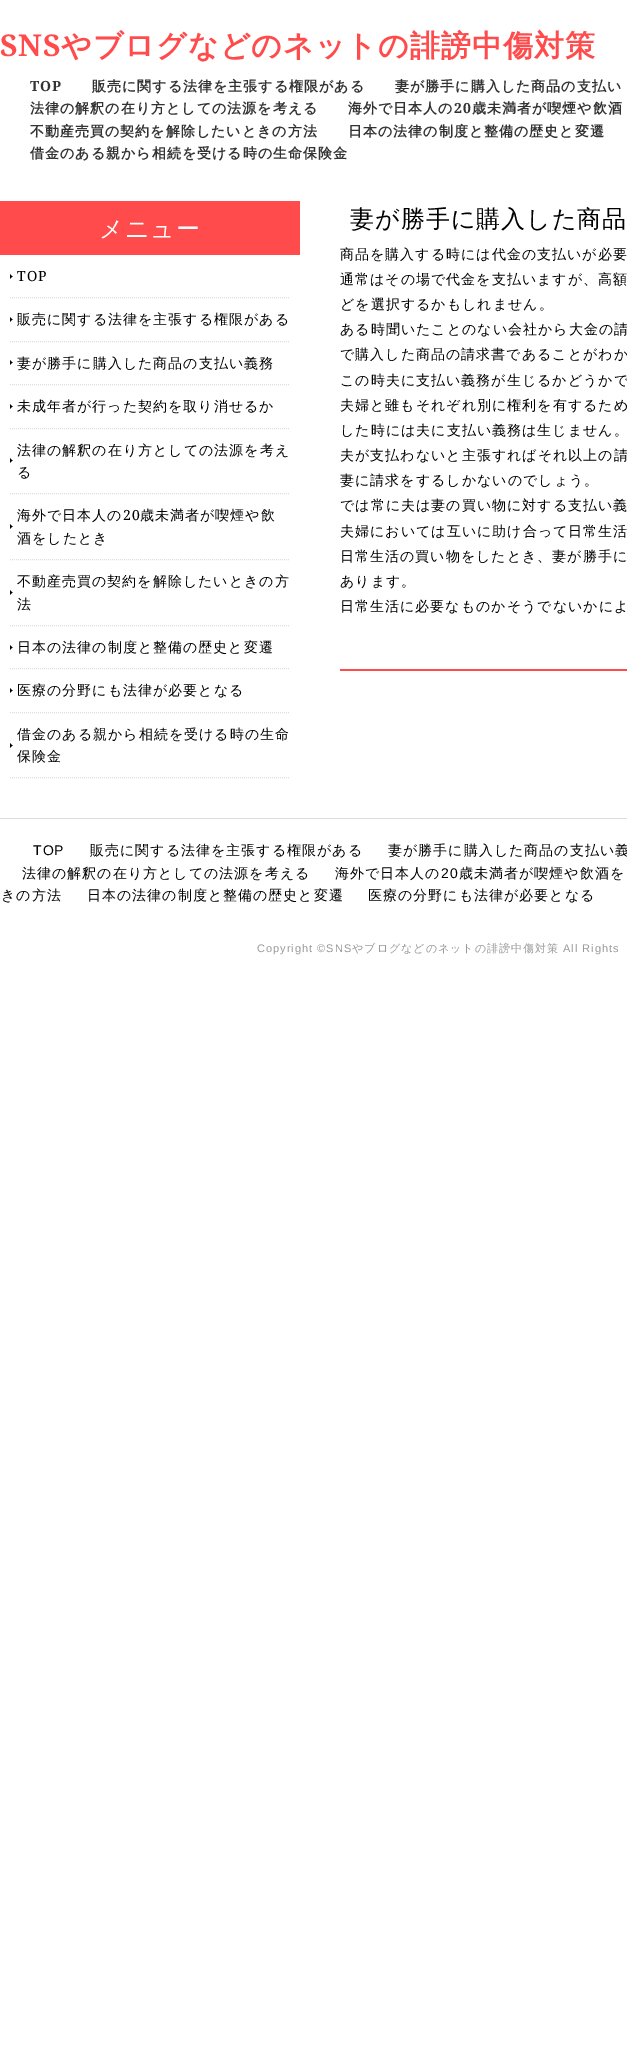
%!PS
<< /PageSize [627 2057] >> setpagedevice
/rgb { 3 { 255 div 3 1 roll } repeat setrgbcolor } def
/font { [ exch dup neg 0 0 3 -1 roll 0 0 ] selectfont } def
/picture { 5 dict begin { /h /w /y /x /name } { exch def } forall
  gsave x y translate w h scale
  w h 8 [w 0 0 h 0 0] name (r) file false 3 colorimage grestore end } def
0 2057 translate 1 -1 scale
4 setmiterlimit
255 255 255 rgb
0 0 627 2057 rectfill
255 75 75 rgb
0 201 300 54 rectfill
(img_01.rgb) 10 274 3 5 picture
221 221 221 rgb
[1 1] 0 setdash
10 297.5 moveto 280 0 rlineto stroke
(img_01.rgb) 10 317 3 5 picture
10 341.5 moveto 280 0 rlineto stroke
(img_01.rgb) 10 360 3 5 picture
10 384.5 moveto 280 0 rlineto stroke
(img_01.rgb) 10 404 3 5 picture
10 428.5 moveto 280 0 rlineto stroke
(img_01.rgb) 10 458 3 5 picture
10 493.5 moveto 280 0 rlineto stroke
(img_01.rgb) 10 524 3 5 picture
10 559.5 moveto 280 0 rlineto stroke
(img_01.rgb) 10 590 3 5 picture
10 625.5 moveto 280 0 rlineto stroke
(img_01.rgb) 10 645 3 5 picture
10 668.5 moveto 280 0 rlineto stroke
(img_01.rgb) 10 688 3 5 picture
10 712.5 moveto 280 0 rlineto stroke
(img_01.rgb) 10 743 3 5 picture
10 777.5 moveto 280 0 rlineto stroke
255 75 75 rgb
340 669 287 2 rectfill
221 221 221 rgb
0 818 627 1 rectfill
/NotoSerif-Bold 30 font
255 75 75 rgb
0 56 moveto 1 0 (SNS) ashow
/WenQuanYiZenHei-Bold 30 font
61 56 moveto 1 0 (やブログなどのネットの誹謗中傷対策) ashow
/NotoSerif-Bold 14 font
51 51 51 rgb
30 91 moveto 1 0 (TOP) ashow
/WenQuanYiZenHei-Bold 14 font
92 91 moveto 1 0 (販売に関する法律を主張する権限がある) ashow
395 91 moveto 1 0 (妻が勝手に購入した商品の支払い) ashow
30 113 moveto 1 0 (法律の解釈の在り方としての法源を考える) ashow
348 113 moveto 1 0 (海外で日本人の) ashow
/NotoSerif-Bold 14 font
454 113 moveto 1 0 (20) ashow
/WenQuanYiZenHei-Bold 14 font
472 113 moveto 1 0 (歳未満者が喫煙や飲酒) ashow
30 136 moveto 1 0 (不動産売買の契約を解除したいときの方法) ashow
348 136 moveto 1 0 (日本の法律の制度と整備の歴史と変遷) ashow
30 158 moveto 1 0 (借金のある親から相続を受ける時の生命保険金) ashow
/WenQuanYiZenHei-Medium 24 font
255 255 255 rgb
99 237 moveto 1 0 (メニュー) ashow
/NotoSerif-Regular 14 font
0 0 0 rgb
17 281 moveto 1 0 (TOP) ashow
/WenQuanYiZenHei-Medium 14 font
17 324 moveto 1 0 (販売に関する法律を主張する権限がある) ashow
17 368 moveto 1 0 (妻が勝手に購入した商品の支払い義務) ashow
17 411 moveto 1 0 (未成年者が行った契約を取り消せるか) ashow
17 455 moveto 1 0 (法律の解釈の在り方としての法源を考え) ashow
17 477 moveto 1 0 (る) ashow
17 520 moveto 1 0 (海外で日本人の) ashow
/NotoSerif-Regular 14 font
123 520 moveto 1 0 (20) ashow
/WenQuanYiZenHei-Medium 14 font
140 520 moveto 1 0 (歳未満者が喫煙や飲) ashow
17 543 moveto 1 0 (酒をしたとき) ashow
17 586 moveto 1 0 (不動産売買の契約を解除したいときの方) ashow
17 609 moveto 1 0 (法) ashow
17 652 moveto 1 0 (日本の法律の制度と整備の歴史と変遷) ashow
17 695 moveto 1 0 (医療の分野にも法律が必要となる) ashow
17 739 moveto 1 0 (借金のある親から相続を受ける時の生命) ashow
17 761 moveto 1 0 (保険金) ashow
/WenQuanYiZenHei-Medium 24 font
350 227 moveto 1 0 (妻が勝手に購入した商品) ashow
/WenQuanYiZenHei-Medium 14 font
340 259 moveto 1 0 (商品を購入する時には代金の支払いが必要) ashow
340 284 moveto 1 0 (通常はその場で代金を支払いますが、高額) ashow
340 309 moveto 1 0 (どを選択するかもしれません。) ashow
340 334 moveto 1 0 (ある時聞いたことのない会社から大金の請) ashow
340 359 moveto 1 0 (で購入した商品の請求書であることがわか) ashow
340 385 moveto 1 0 (この時夫に支払い義務が生じるかどうかで) ashow
340 410 moveto 1 0 (夫婦と雖もそれぞれ別に権利を有するため) ashow
340 435 moveto 1 0 (した時には夫に支払い義務は生じません。) ashow
340 460 moveto 1 0 (夫が支払わないと主張すればそれ以上の請) ashow
340 485 moveto 1 0 (妻に請求をするしかないのでしょう。) ashow
340 510 moveto 1 0 (では常に夫は妻の買い物に対する支払い義) ashow
340 536 moveto 1 0 (夫婦においては互いに助け合って日常生活) ashow
340 561 moveto 1 0 (日常生活の買い物をしたとき、妻が勝手に) ashow
340 586 moveto 1 0 (あります。) ashow
340 611 moveto 1 0 (日常生活に必要なものかそうでないかによ) ashow
/LiberationSans-Regular 14 font
33 855 moveto 1 0 (TOP) ashow
/WenQuanYiZenHei-Medium 14 font
90 855 moveto 1 0 (販売に関する法律を主張する権限がある) ashow
388 855 moveto 1 0 (妻が勝手に購入した商品の支払い義) ashow
22 878 moveto 1 0 (法律の解釈の在り方としての法源を考える) ashow
335 878 moveto 1 0 (海外で日本人の) ashow
/LiberationSans-Regular 14 font
441 878 moveto 1 0 (20) ashow
/WenQuanYiZenHei-Medium 14 font
459 878 moveto 1 0 (歳未満者が喫煙や飲酒を) ashow
1 900 moveto 1 0 (きの方法) ashow
87 900 moveto 1 0 (日本の法律の制度と整備の歴史と変遷) ashow
368 900 moveto 1 0 (医療の分野にも法律が必要となる) ashow
/LiberationSans-Regular 11 font
153 153 153 rgb
257 952 moveto 1 0 (Copyright ©SNS) ashow
/WenQuanYiZenHei-Medium 11 font
352 952 moveto 1 0 (やブログなどのネットの誹謗中傷対策) ashow
/LiberationSans-Regular 11 font
563 952 moveto 1 0 (All Rights) ashow
showpage
